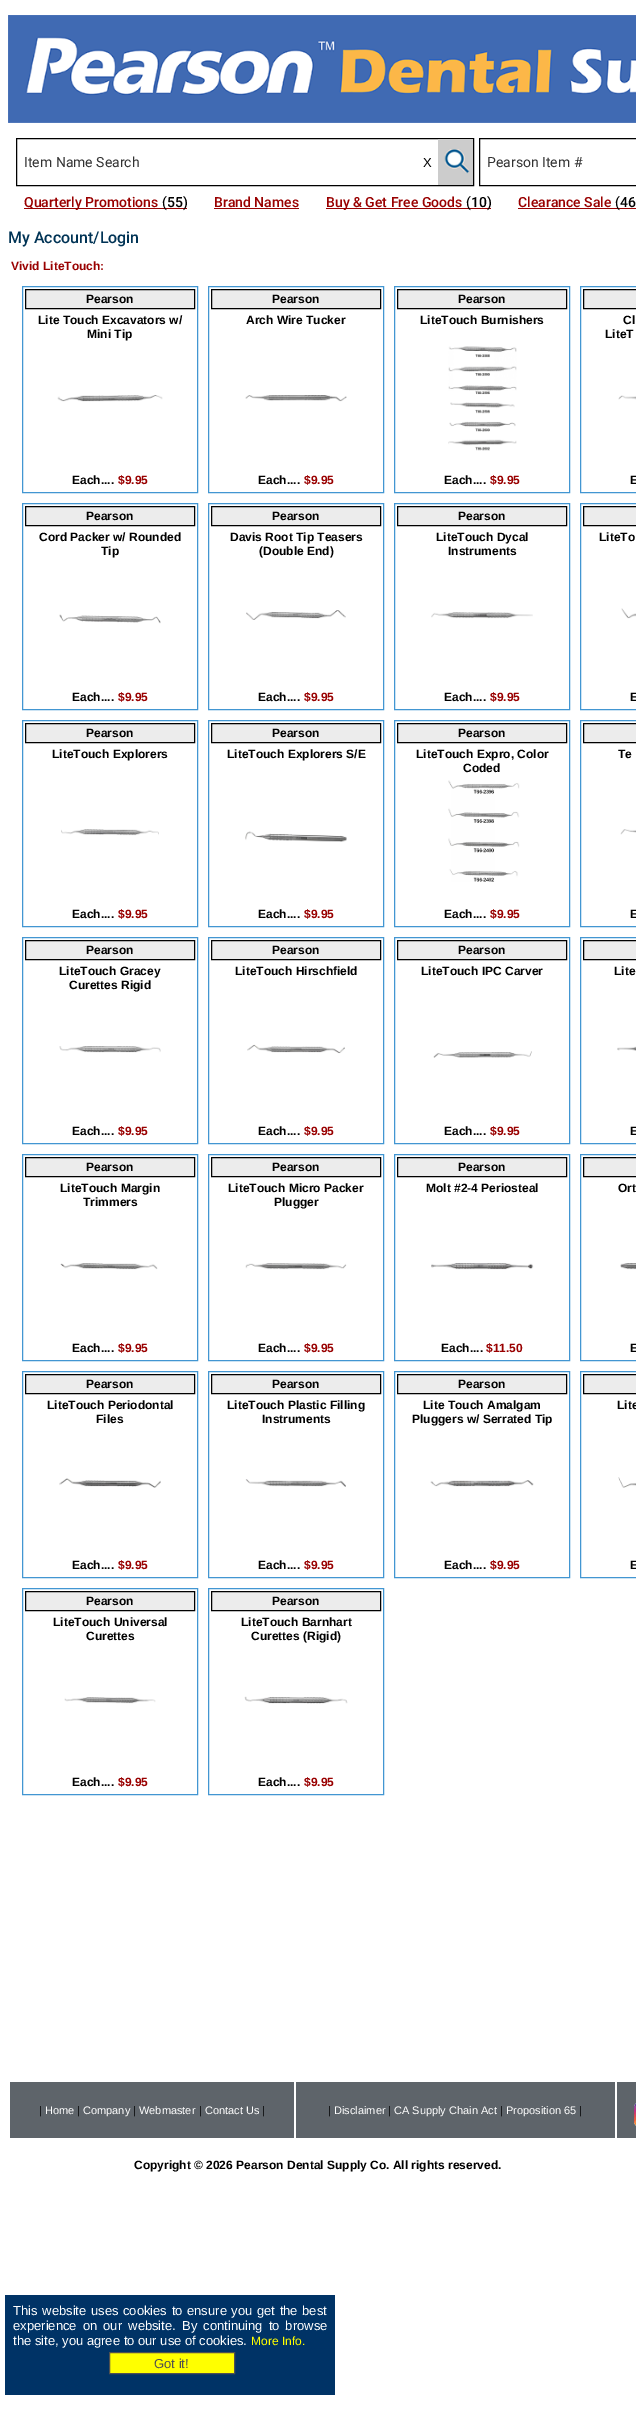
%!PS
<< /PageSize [636 2410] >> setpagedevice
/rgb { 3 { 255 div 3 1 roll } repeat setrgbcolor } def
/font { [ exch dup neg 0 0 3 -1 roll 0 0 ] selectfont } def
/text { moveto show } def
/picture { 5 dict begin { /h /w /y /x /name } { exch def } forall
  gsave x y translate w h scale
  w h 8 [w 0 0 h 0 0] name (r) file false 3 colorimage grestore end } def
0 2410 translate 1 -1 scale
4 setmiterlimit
255 255 255 rgb
0 0 636 2410 rectfill
(img_01.rgb) 8 15 628 108 picture
0 0 0 rgb
16.5 138.5 457 47 rectstroke
204 204 204 rgb
438 139 35 46 rectfill
(img_02.rgb) 443 144 27 36 picture
0 0 0 rgb
479.5 138.5 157 47 rectstroke
153 0 0 rgb
24 208 163 1 rectfill
214 208 85 1 rectfill
326 208 165 1 rectfill
518 208 118 1 rectfill
66 150 210 rgb
22.5 286.5 175 206 rectstroke
236 236 236 rgb
25.5 289.5 moveto 169 0 rlineto 0 19 rlineto -169 0 rlineto closepath gsave fill grestore
0 0 0 rgb
stroke
(img_03.rgb) 57 395 106 7 picture
66 150 210 rgb
208.5 286.5 175 206 rectstroke
236 236 236 rgb
211.5 289.5 moveto 169 0 rlineto 0 19 rlineto -169 0 rlineto closepath gsave fill grestore
0 0 0 rgb
stroke
(img_04.rgb) 245 395 102 7 picture
66 150 210 rgb
394.5 286.5 175 206 rectstroke
236 236 236 rgb
397.5 289.5 moveto 169 0 rlineto 0 19 rlineto -169 0 rlineto closepath gsave fill grestore
0 0 0 rgb
stroke
(img_05.rgb) 448 346 69 105 picture
66 150 210 rgb
580.5 286.5 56 206 rectstroke
236 236 236 rgb
583.5 289.5 moveto 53 0 rlineto 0 19 rlineto -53 0 rlineto closepath gsave fill grestore
0 0 0 rgb
stroke
(img_06.rgb) 618 395 18 5 picture
66 150 210 rgb
22.5 503.5 175 206 rectstroke
236 236 236 rgb
25.5 506.5 moveto 169 0 rlineto 0 19 rlineto -169 0 rlineto closepath gsave fill grestore
0 0 0 rgb
stroke
(img_07.rgb) 59 614 102 10 picture
66 150 210 rgb
208.5 503.5 175 206 rectstroke
236 236 236 rgb
211.5 506.5 moveto 169 0 rlineto 0 19 rlineto -169 0 rlineto closepath gsave fill grestore
0 0 0 rgb
stroke
(img_08.rgb) 246 610 100 10 picture
66 150 210 rgb
394.5 503.5 175 206 rectstroke
236 236 236 rgb
397.5 506.5 moveto 169 0 rlineto 0 19 rlineto -169 0 rlineto closepath gsave fill grestore
0 0 0 rgb
stroke
(img_09.rgb) 431 612 102 7 picture
66 150 210 rgb
580.5 503.5 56 206 rectstroke
236 236 236 rgb
583.5 506.5 moveto 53 0 rlineto 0 19 rlineto -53 0 rlineto closepath gsave fill grestore
0 0 0 rgb
stroke
(img_10.rgb) 621 608 15 11 picture
66 150 210 rgb
22.5 720.5 175 206 rectstroke
236 236 236 rgb
25.5 723.5 moveto 169 0 rlineto 0 19 rlineto -169 0 rlineto closepath gsave fill grestore
0 0 0 rgb
stroke
(img_11.rgb) 61 829 98 7 picture
66 150 210 rgb
208.5 720.5 175 206 rectstroke
236 236 236 rgb
211.5 723.5 moveto 169 0 rlineto 0 19 rlineto -169 0 rlineto closepath gsave fill grestore
0 0 0 rgb
stroke
(img_12.rgb) 245 831 102 11 picture
66 150 210 rgb
394.5 720.5 175 206 rectstroke
236 236 236 rgb
397.5 723.5 moveto 169 0 rlineto 0 19 rlineto -169 0 rlineto closepath gsave fill grestore
0 0 0 rgb
stroke
(img_13.rgb) 448 780 72 102 picture
66 150 210 rgb
580.5 720.5 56 206 rectstroke
236 236 236 rgb
583.5 723.5 moveto 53 0 rlineto 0 19 rlineto -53 0 rlineto closepath gsave fill grestore
0 0 0 rgb
stroke
(img_14.rgb) 620 829 16 6 picture
66 150 210 rgb
22.5 937.5 175 206 rectstroke
236 236 236 rgb
25.5 940.5 moveto 169 0 rlineto 0 19 rlineto -169 0 rlineto closepath gsave fill grestore
0 0 0 rgb
stroke
(img_15.rgb) 59 1046 102 7 picture
66 150 210 rgb
208.5 937.5 175 206 rectstroke
236 236 236 rgb
211.5 940.5 moveto 169 0 rlineto 0 19 rlineto -169 0 rlineto closepath gsave fill grestore
0 0 0 rgb
stroke
(img_16.rgb) 247 1044 98 10 picture
66 150 210 rgb
394.5 937.5 175 206 rectstroke
236 236 236 rgb
397.5 940.5 moveto 169 0 rlineto 0 19 rlineto -169 0 rlineto closepath gsave fill grestore
0 0 0 rgb
stroke
(img_17.rgb) 433 1051 99 7 picture
66 150 210 rgb
580.5 937.5 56 206 rectstroke
236 236 236 rgb
583.5 940.5 moveto 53 0 rlineto 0 19 rlineto -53 0 rlineto closepath gsave fill grestore
0 0 0 rgb
stroke
(img_18.rgb) 617 1046 19 5 picture
66 150 210 rgb
22.5 1154.5 175 206 rectstroke
236 236 236 rgb
25.5 1157.5 moveto 169 0 rlineto 0 19 rlineto -169 0 rlineto closepath gsave fill grestore
0 0 0 rgb
stroke
(img_19.rgb) 60 1263 98 7 picture
66 150 210 rgb
208.5 1154.5 175 206 rectstroke
236 236 236 rgb
211.5 1157.5 moveto 169 0 rlineto 0 19 rlineto -169 0 rlineto closepath gsave fill grestore
0 0 0 rgb
stroke
(img_20.rgb) 245 1263 102 7 picture
66 150 210 rgb
394.5 1154.5 175 206 rectstroke
236 236 236 rgb
397.5 1157.5 moveto 169 0 rlineto 0 19 rlineto -169 0 rlineto closepath gsave fill grestore
0 0 0 rgb
stroke
(img_21.rgb) 431 1263 103 7 picture
66 150 210 rgb
580.5 1154.5 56 206 rectstroke
236 236 236 rgb
583.5 1157.5 moveto 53 0 rlineto 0 19 rlineto -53 0 rlineto closepath gsave fill grestore
0 0 0 rgb
stroke
(img_22.rgb) 620 1263 16 7 picture
66 150 210 rgb
22.5 1371.5 175 206 rectstroke
236 236 236 rgb
25.5 1374.5 moveto 169 0 rlineto 0 19 rlineto -169 0 rlineto closepath gsave fill grestore
0 0 0 rgb
stroke
(img_23.rgb) 59 1478 102 10 picture
66 150 210 rgb
208.5 1371.5 175 206 rectstroke
236 236 236 rgb
211.5 1374.5 moveto 169 0 rlineto 0 19 rlineto -169 0 rlineto closepath gsave fill grestore
0 0 0 rgb
stroke
(img_24.rgb) 245 1479 101 8 picture
66 150 210 rgb
394.5 1371.5 175 206 rectstroke
236 236 236 rgb
397.5 1374.5 moveto 169 0 rlineto 0 19 rlineto -169 0 rlineto closepath gsave fill grestore
0 0 0 rgb
stroke
(img_25.rgb) 430 1480 104 7 picture
66 150 210 rgb
580.5 1371.5 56 206 rectstroke
236 236 236 rgb
583.5 1374.5 moveto 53 0 rlineto 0 19 rlineto -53 0 rlineto closepath gsave fill grestore
0 0 0 rgb
stroke
(img_26.rgb) 618 1477 18 11 picture
66 150 210 rgb
22.5 1588.5 175 206 rectstroke
236 236 236 rgb
25.5 1591.5 moveto 169 0 rlineto 0 19 rlineto -169 0 rlineto closepath gsave fill grestore
0 0 0 rgb
stroke
(img_27.rgb) 64 1697 92 7 picture
66 150 210 rgb
208.5 1588.5 175 206 rectstroke
236 236 236 rgb
211.5 1591.5 moveto 169 0 rlineto 0 19 rlineto -169 0 rlineto closepath gsave fill grestore
0 0 0 rgb
stroke
(img_28.rgb) 244 1696 104 8 picture
94 100 106 rgb
10 2082 284 56 rectfill
296 2082 319 56 rectfill
617 2082 19 56 rectfill
(img_29.rgb) 634 2103 2 23 picture
0 51 102 rgb
5 2295 330 100 rectfill
255 255 0 rgb
109.5 2352.5 moveto 125 0 rlineto 0 21 rlineto -125 0 rlineto closepath gsave fill grestore
80 80 80 rgb
stroke
/Roboto-Regular 14 font
51 51 51 rgb
(Item Name Search) 24 167 text
/LiberationSans-Regular 13 font
0 0 0 rgb
(X) 423 167 text
/Roboto-Regular 14 font
51 51 51 rgb
(Pearson Item #) 487 167 text
/Roboto-Medium 14 font
153 0 0 rgb
(Quarterly Promotions) 24 207 text
0 0 0 rgb
(\(55\)) 162 207 text
153 0 0 rgb
(Brand Names) 214 207 text
(Buy & Get Free Goods) 326 207 text
0 0 0 rgb
(\(10\)) 466 207 text
153 0 0 rgb
(Clearance Sale) 518 207 text
0 0 0 rgb
(\(46) 615 207 text
/Roboto-Medium 16 font
0 51 85 rgb
(My Account/Login) 8 243 text
/LiberationSans-Bold 12 font
153 0 0 rgb
(Vivid LiteTouch:) 11 270 text
0 0 0 rgb
(Pearson) 86 303 text
(Lite Touch Excavators w/) 38 324 text
(Mini Tip) 87 338 text
(Each....) 72 484 text
153 0 0 rgb
($9.95) 118 484 text
0 0 0 rgb
(Pearson) 272 303 text
(Arch Wire Tucker) 246 324 text
(Each....) 258 484 text
153 0 0 rgb
($9.95) 304 484 text
0 0 0 rgb
(Pearson) 458 303 text
(LiteTouch Burnishers) 420 324 text
(Each....) 444 484 text
153 0 0 rgb
($9.95) 490 484 text
0 0 0 rgb
(Cl) 623 324 text
(LiteT) 605 338 text
(E) 630 484 text
(Pearson) 86 520 text
(Cord Packer w/ Rounded) 39 541 text
(Tip) 101 555 text
(Each....) 72 701 text
153 0 0 rgb
($9.95) 118 701 text
0 0 0 rgb
(Pearson) 272 520 text
(Davis Root Tip Teasers) 230 541 text
(\(Double End\)) 259 555 text
(Each....) 258 701 text
153 0 0 rgb
($9.95) 304 701 text
0 0 0 rgb
(Pearson) 458 520 text
(LiteTouch Dycal) 436 541 text
(Instruments) 448 555 text
(Each....) 444 701 text
153 0 0 rgb
($9.95) 490 701 text
0 0 0 rgb
(LiteTo) 599 541 text
(E) 630 701 text
(Pearson) 86 737 text
(LiteTouch Explorers) 52 758 text
(Each....) 72 918 text
153 0 0 rgb
($9.95) 118 918 text
0 0 0 rgb
(Pearson) 272 737 text
(LiteTouch Explorers S/E) 227 758 text
(Each....) 258 918 text
153 0 0 rgb
($9.95) 304 918 text
0 0 0 rgb
(Pearson) 458 737 text
(LiteTouch Expro, Color) 416 758 text
(Coded) 463 772 text
(Each....) 444 918 text
153 0 0 rgb
($9.95) 490 918 text
0 0 0 rgb
(Te) 618 758 text
(E) 630 918 text
(Pearson) 86 954 text
(LiteTouch Gracey) 59 975 text
(Curettes Rigid) 69 989 text
(Each....) 72 1135 text
153 0 0 rgb
($9.95) 118 1135 text
0 0 0 rgb
(Pearson) 272 954 text
(LiteTouch Hirschfield) 235 975 text
(Each....) 258 1135 text
153 0 0 rgb
($9.95) 304 1135 text
0 0 0 rgb
(Pearson) 458 954 text
(LiteTouch IPC Carver) 421 975 text
(Each....) 444 1135 text
153 0 0 rgb
($9.95) 490 1135 text
0 0 0 rgb
(Lite) 614 975 text
(E) 630 1135 text
(Pearson) 86 1171 text
(LiteTouch Margin) 60 1192 text
(Trimmers) 83 1206 text
(Each....) 72 1352 text
153 0 0 rgb
($9.95) 118 1352 text
0 0 0 rgb
(Pearson) 272 1171 text
(LiteTouch Micro Packer) 228 1192 text
(Plugger) 274 1206 text
(Each....) 258 1352 text
153 0 0 rgb
($9.95) 304 1352 text
0 0 0 rgb
(Pearson) 458 1171 text
(Molt #2-4 Periosteal) 426 1192 text
(Each....) 441 1352 text
153 0 0 rgb
($11.50) 486 1352 text
0 0 0 rgb
(Ort) 618 1192 text
(E) 630 1352 text
(Pearson) 86 1388 text
(LiteTouch Periodontal) 47 1409 text
(Files) 96 1423 text
(Each....) 72 1569 text
153 0 0 rgb
($9.95) 118 1569 text
0 0 0 rgb
(Pearson) 272 1388 text
(LiteTouch Plastic Filling) 227 1409 text
(Instruments) 262 1423 text
(Each....) 258 1569 text
153 0 0 rgb
($9.95) 304 1569 text
0 0 0 rgb
(Pearson) 458 1388 text
(Lite Touch Amalgam) 423 1409 text
(Pluggers w/ Serrated Tip) 412 1423 text
(Each....) 444 1569 text
153 0 0 rgb
($9.95) 490 1569 text
0 0 0 rgb
(Lite) 617 1409 text
(E) 630 1569 text
(Pearson) 86 1605 text
(LiteTouch Universal) 53 1626 text
(Curettes) 86 1640 text
(Each....) 72 1786 text
153 0 0 rgb
($9.95) 118 1786 text
0 0 0 rgb
(Pearson) 272 1605 text
(LiteTouch Barnhart) 241 1626 text
(Curettes \(Rigid\)) 251 1640 text
(Each....) 258 1786 text
153 0 0 rgb
($9.95) 304 1786 text
/LiberationSans-Regular 11 font
0 0 0 rgb
(|) 39 2114 text
255 255 255 rgb
(Home) 45 2114 text
0 0 0 rgb
(|) 77 2114 text
255 255 255 rgb
(Company) 83 2114 text
0 0 0 rgb
(|) 133 2114 text
255 255 255 rgb
(Webmaster) 139 2114 text
0 0 0 rgb
(|) 199 2114 text
255 255 255 rgb
(Contact Us) 205 2114 text
0 0 0 rgb
(|) 262 2114 text
(|) 328 2114 text
255 255 255 rgb
(Disclaimer) 334 2114 text
0 0 0 rgb
(|) 388 2114 text
255 255 255 rgb
(CA Supply Chain Act) 394 2114 text
0 0 0 rgb
(|) 500 2114 text
255 255 255 rgb
(Proposition 65) 506 2114 text
0 0 0 rgb
(|) 579 2114 text
/LiberationSans-Bold 12 font
(Copyright © 2026 Pearson Dental Supply Co. All rights reserved.) 134 2169 text
/LiberationSans-Regular 13 font
255 255 255 rgb
13 2315 moveto 1 0 32 (This website uses cookies to ensure you get the best) widthshow
13 2330 moveto 2.5 0 32 (experience on our website. By continuing to browse) widthshow
(the site, you agree to our use of cookies.) 13 2345 text
/LiberationSans-Regular 12 font
255 255 0 rgb
(More Info.) 251 2345 text
/LiberationSans-Regular 13 font
80 80 80 rgb
(Got it!) 154 2368 text
showpage
